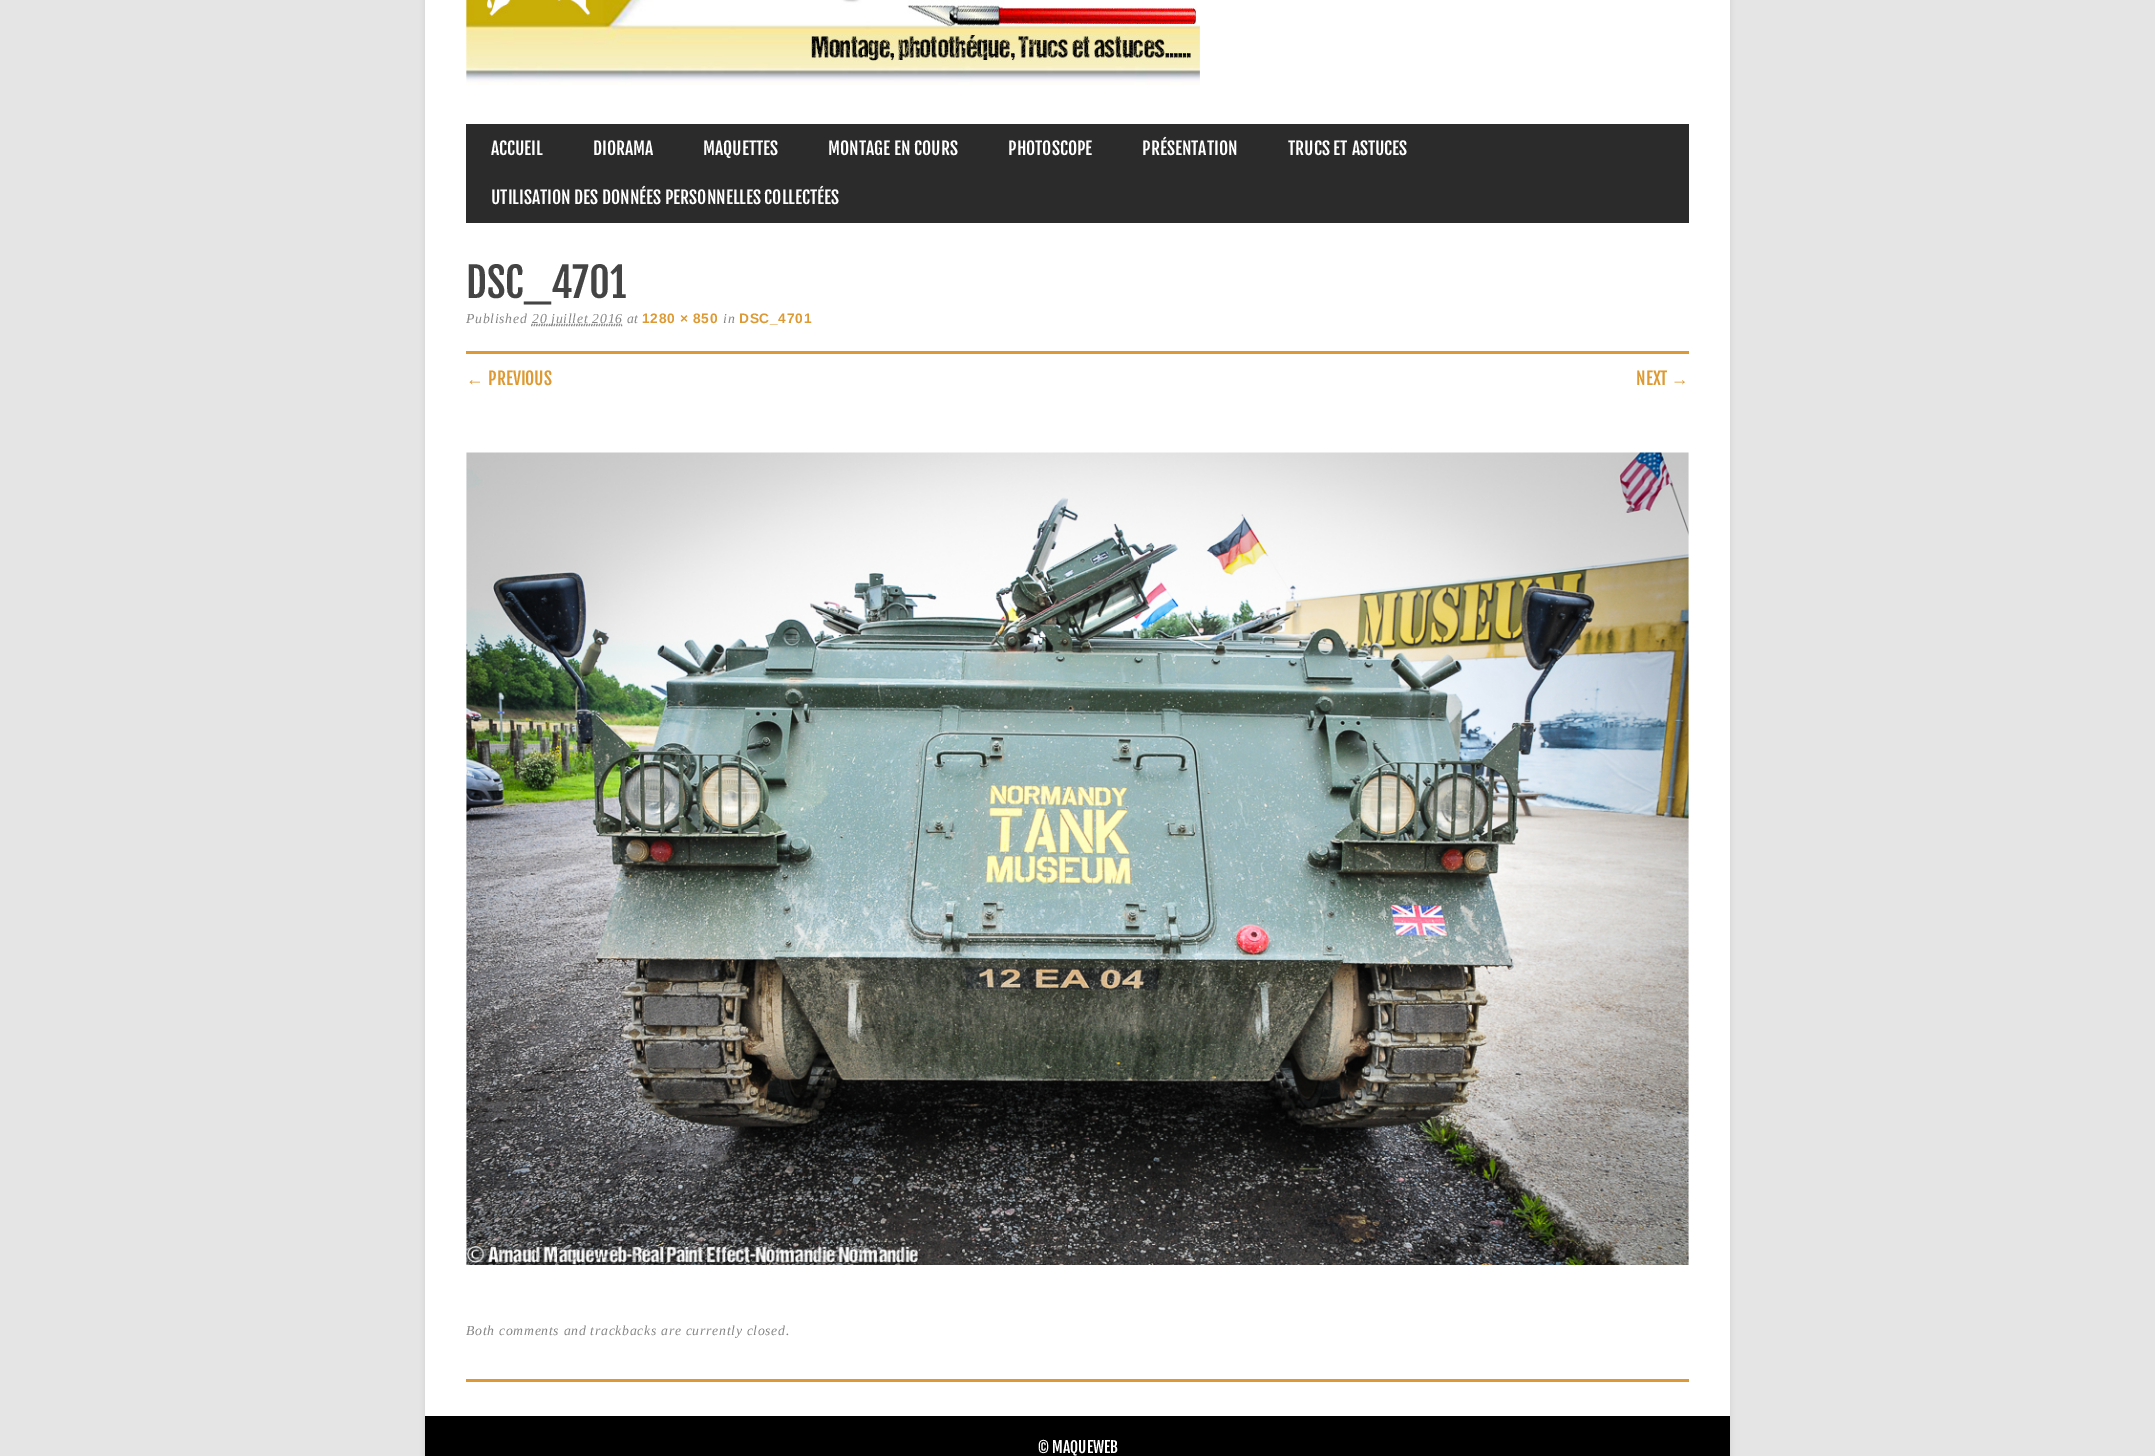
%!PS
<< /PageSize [2155 1456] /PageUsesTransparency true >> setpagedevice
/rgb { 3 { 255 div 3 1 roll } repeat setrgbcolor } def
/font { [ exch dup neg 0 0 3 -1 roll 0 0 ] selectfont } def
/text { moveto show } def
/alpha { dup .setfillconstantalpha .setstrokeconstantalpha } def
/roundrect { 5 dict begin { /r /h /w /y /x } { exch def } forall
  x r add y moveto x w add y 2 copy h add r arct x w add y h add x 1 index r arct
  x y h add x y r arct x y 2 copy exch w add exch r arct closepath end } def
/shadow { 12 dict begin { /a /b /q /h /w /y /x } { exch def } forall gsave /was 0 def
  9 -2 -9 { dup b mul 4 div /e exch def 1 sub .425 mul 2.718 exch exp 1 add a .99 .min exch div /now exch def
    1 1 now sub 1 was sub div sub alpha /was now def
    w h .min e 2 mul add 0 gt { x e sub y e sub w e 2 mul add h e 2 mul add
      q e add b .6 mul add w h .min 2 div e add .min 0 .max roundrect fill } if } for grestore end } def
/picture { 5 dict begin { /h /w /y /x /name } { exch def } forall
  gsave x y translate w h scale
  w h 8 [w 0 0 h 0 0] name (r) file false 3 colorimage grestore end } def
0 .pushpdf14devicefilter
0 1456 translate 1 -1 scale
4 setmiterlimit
229 229 229 rgb
0 0 2155 1456 rectfill
208 208 208 rgb
425 -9 1305 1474 0 3 1 shadow
255 255 255 rgb
425 0 1305 1416 rectfill
(img_01.rgb) 466 0 734 85 picture
43 43 43 rgb
466 124 1223 99 rectfill
133 133 133 rgb
1.2 setlinewidth
[1.25 1.25] 0 setdash
531 325.5 moveto 91.5 0 rlineto stroke
531.5 324.5 moveto 90.5 0 rlineto stroke
221 153 51 rgb
466 351 1223 3 rectfill
(img_02.rgb) 466 452 1223 813 picture
466 1379 1223 3 rectfill
0 0 0 rgb
425 1416 1305 40 rectfill
/FjallaOne-Regular 17.5 font
255 255 255 rgb
(ACCUEIL) 491 155 text
(DIORAMA) 593 155 text
(MAQUETTES) 703 155 text
(MONTAGE EN COURS) 828 155 text
(PHOTOSCOPE) 1008 155 text
(PRÉSENTATION) 1142 155 text
(TRUCS ET ASTUCES) 1288 155 text
(UTILISATION DES DONNÉES PERSONNELLES COLLECTÉES) 491 204 text
/FjallaOne-Regular 40.5 font
68 68 68 rgb
(DSC_4701) 466 298 text
/LiberationSerif-Italic 13.75 font
133 133 133 rgb
466 323 moveto 0.7 0 (Published) ashow
532 323 moveto 0.7 0 (20 juillet 2016 at) ashow
/LiberationSans-Bold 13.75 font
221 153 51 rgb
642 323 moveto 0.7 0 (1280 × 850) ashow
/LiberationSerif-Italic 13.75 font
133 133 133 rgb
723 323 moveto 0.7 0 (in) ashow
/LiberationSans-Bold 13.75 font
221 153 51 rgb
739 323 moveto 0.7 0 (DSC_4701) ashow
/LiberationSans-Regular 17.5 font
(←) 466 385 text
/FjallaOne-Regular 17.5 font
(PREVIOUS) 488 385 text
(NEXT) 1636 385 text
/LiberationSans-Regular 17.5 font
(→) 1671 385 text
/LiberationSerif-Italic 13.75 font
133 133 133 rgb
466 1335 moveto 0.7 0 (Both comments and trackbacks are currently closed.) ashow
/FjallaOne-Regular 15.5 font
255 255 255 rgb
(© MAQUEWEB) 1038 1453 text
.poppdf14devicefilter showpage
